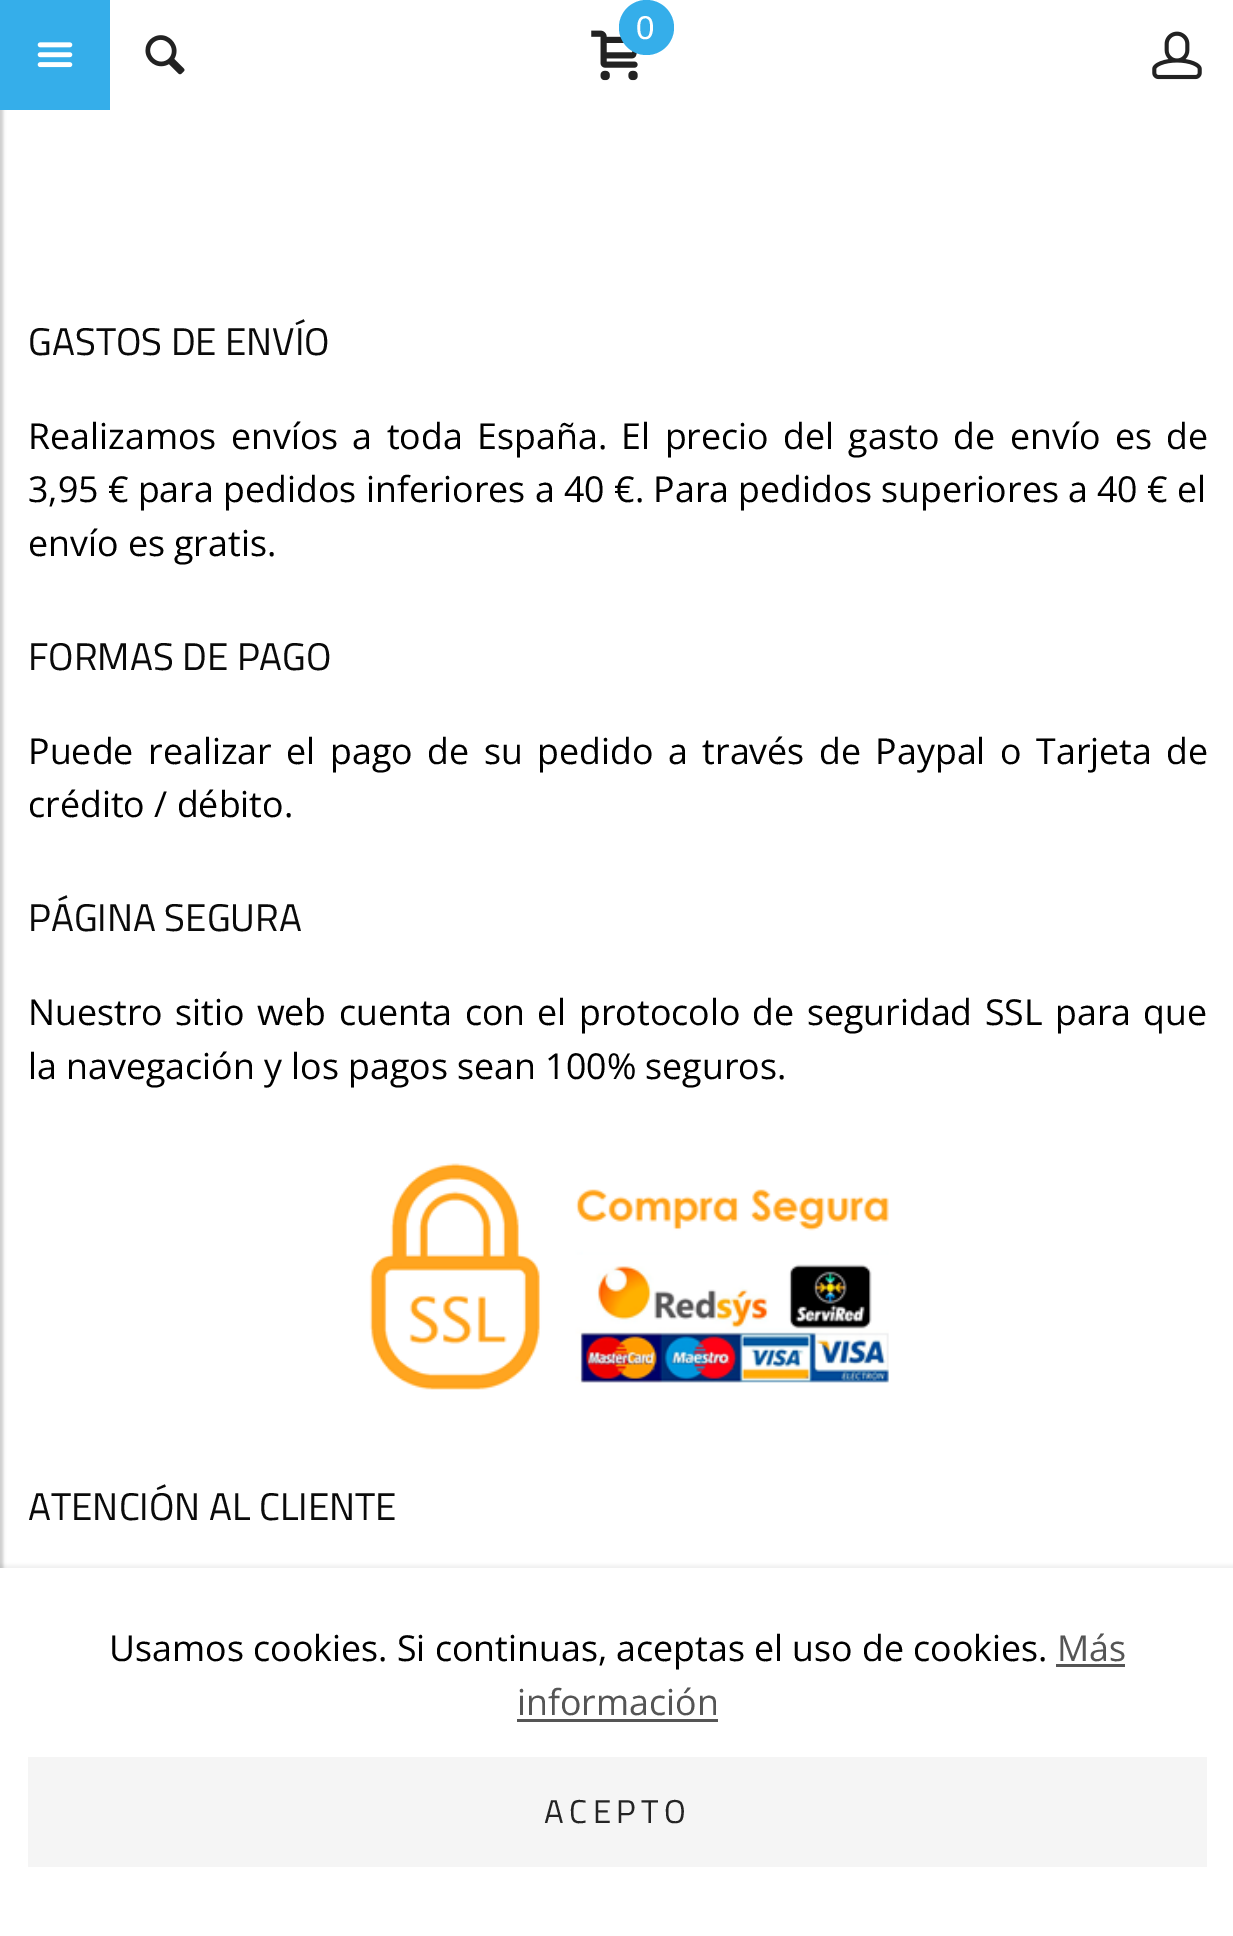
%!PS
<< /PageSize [1233 1936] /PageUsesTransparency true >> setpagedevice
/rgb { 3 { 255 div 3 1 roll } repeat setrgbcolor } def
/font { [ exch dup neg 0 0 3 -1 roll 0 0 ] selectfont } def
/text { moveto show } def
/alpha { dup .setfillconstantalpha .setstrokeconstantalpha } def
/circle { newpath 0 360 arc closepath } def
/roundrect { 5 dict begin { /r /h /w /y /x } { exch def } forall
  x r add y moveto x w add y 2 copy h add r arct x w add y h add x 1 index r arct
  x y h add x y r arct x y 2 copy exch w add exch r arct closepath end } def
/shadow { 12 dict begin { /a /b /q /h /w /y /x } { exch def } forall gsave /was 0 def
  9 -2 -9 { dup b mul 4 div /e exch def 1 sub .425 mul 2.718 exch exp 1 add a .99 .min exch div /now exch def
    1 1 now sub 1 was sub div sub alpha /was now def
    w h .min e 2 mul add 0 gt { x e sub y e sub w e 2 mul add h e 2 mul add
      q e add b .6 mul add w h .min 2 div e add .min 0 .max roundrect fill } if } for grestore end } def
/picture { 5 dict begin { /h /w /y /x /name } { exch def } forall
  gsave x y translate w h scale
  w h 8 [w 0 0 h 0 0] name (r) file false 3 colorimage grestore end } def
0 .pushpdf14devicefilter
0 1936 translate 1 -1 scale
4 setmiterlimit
255 255 255 rgb
0 0 1233 1936 rectfill
0 0 0 rgb
-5 3 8 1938 0 1.5 0.1 shadow
-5 3 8 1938 0 1.5 0.1 shadow
53 174 234 rgb
0 0 110 110 rectfill
(img_01.rgb) 37 42 36 26 picture
(img_02.rgb) 591 30 47 51 picture
646.5 27.5 27.5 circle fill
(img_03.rgb) 145 35 40 40 picture
(img_04.rgb) 1152 31 50 49 picture
(img_05.rgb) 369 1163 520 227 picture
0 0 0 rgb
-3 1565 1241 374 0 1.5 0.05 shadow
255 255 255 rgb
0 1568 1233 368 rectfill
85 85 85 rgb
1056 1664 69 3 rectfill
517 1719 201 3 rectfill
245 245 245 rgb
28 1757 1179 110 rectfill
/LiberationSans-Regular 33 font
255 255 255 rgb
636 39 moveto -1 0 (0) ashow
/TitilliumWeb-Regular 38.5 font
10 10 10 rgb
(GASTOS DE ENVÍO) 28 355 text
/OpenSans-Regular 35.75 font
0 0 0 rgb
28 449 moveto 5.1 0 32 (Realizamos envíos a toda España. El precio del gasto de envío es de) widthshow
(3,95 € para pedidos inferiores a 40 €. Para pedidos superiores a 40 € el) 28 502 text
(envío es gratis.) 28 556 text
/TitilliumWeb-Regular 38.5 font
10 10 10 rgb
(FORMAS DE PAGO) 28 670 text
/OpenSans-Regular 35.75 font
0 0 0 rgb
28 764 moveto 5.25 0 32 (Puede realizar el pago de su pedido a través de Paypal o Tarjeta de) widthshow
(crédito / débito.) 28 817 text
/TitilliumWeb-Regular 38.5 font
10 10 10 rgb
(PÁGINA SEGURA) 28 931 text
/OpenSans-Regular 35.75 font
0 0 0 rgb
28 1025 moveto 3 0 32 (Nuestro sitio web cuenta con el protocolo de seguridad SSL para que) widthshow
(la navegación y los pagos sean 100% seguros.) 28 1079 text
/TitilliumWeb-Regular 38.5 font
10 10 10 rgb
(ATENCIÓN AL CLIENTE) 28 1520 text
/OpenSans-Regular 35.75 font
0 0 0 rgb
(Usamos cookies. Si continuas, aceptas el uso de cookies.) 109 1661 text
85 85 85 rgb
(Más) 1057 1661 text
(información) 517 1715 text
/TitilliumWeb-Regular 33 font
36 36 36 rgb
544 1823 moveto 5.5 0 (ACEPTO) ashow
.poppdf14devicefilter showpage
